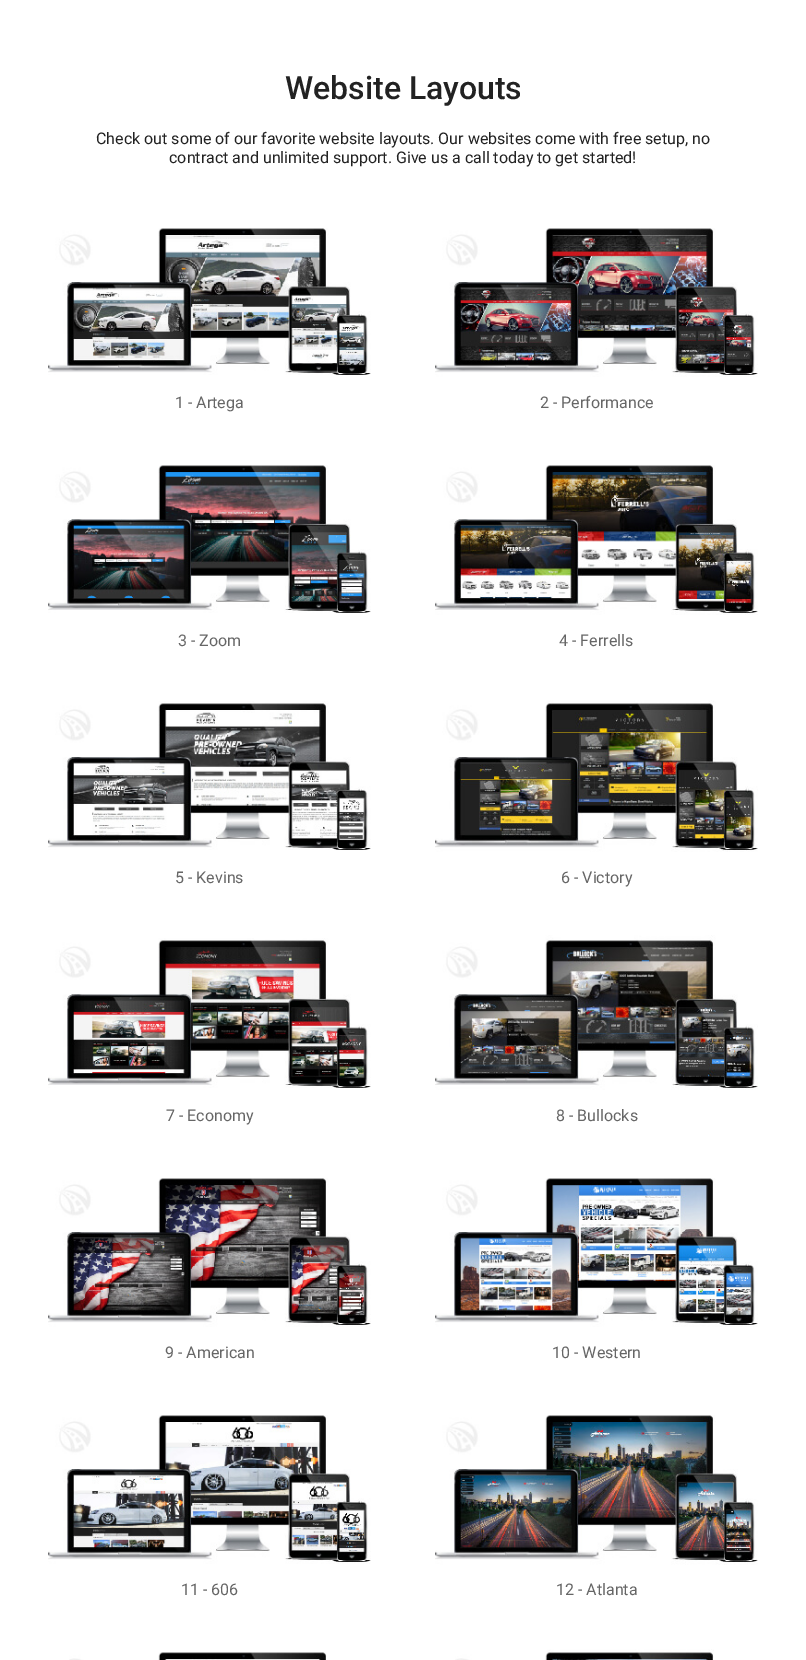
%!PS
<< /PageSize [806 1660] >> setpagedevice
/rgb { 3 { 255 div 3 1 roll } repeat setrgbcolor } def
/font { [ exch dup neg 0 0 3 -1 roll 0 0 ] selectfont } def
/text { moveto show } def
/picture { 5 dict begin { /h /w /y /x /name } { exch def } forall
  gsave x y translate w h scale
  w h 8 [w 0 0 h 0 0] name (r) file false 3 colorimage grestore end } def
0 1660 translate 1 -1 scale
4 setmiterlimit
255 255 255 rgb
0 0 806 1660 rectfill
(img_01.rgb) 48 228 323 147 picture
(img_02.rgb) 435 228 323 149 picture
(img_03.rgb) 48 465 323 148 picture
(img_04.rgb) 435 465 323 150 picture
(img_05.rgb) 48 701 323 149 picture
(img_06.rgb) 435 700 323 152 picture
(img_07.rgb) 48 938 323 150 picture
(img_08.rgb) 435 935 323 155 picture
(img_09.rgb) 48 1178 323 149 picture
(img_10.rgb) 435 1178 323 149 picture
(img_11.rgb) 48 1415 323 149 picture
(img_12.rgb) 435 1415 323 150 picture
(img_13.rgb) 69 1652 258 8 picture
(img_14.rgb) 455 1649 259 11 picture
/Roboto-Medium 32 font
34 34 34 rgb
(Website Layouts) 285 99 text
/Roboto-Regular 16 font
(Check out some of our favorite website layouts. Our websites come with free setup, no) 96 144 text
(contract and unlimited support. Give us a call today to get started!) 169 163 text
102 102 102 rgb
(1 - Artega) 175 408 text
(2 - Performance) 540 408 text
(3 - Zoom) 178 646 text
(4 - Ferrells) 559 646 text
(5 - Kevins) 175 883 text
(6 - Victory) 561 883 text
(7 - Economy) 166 1121 text
(8 - Bullocks) 556 1121 text
(9 - American) 165 1358 text
(10 - Western) 552 1358 text
(11 - 606) 181 1595 text
(12 - Atlanta) 556 1595 text
showpage
